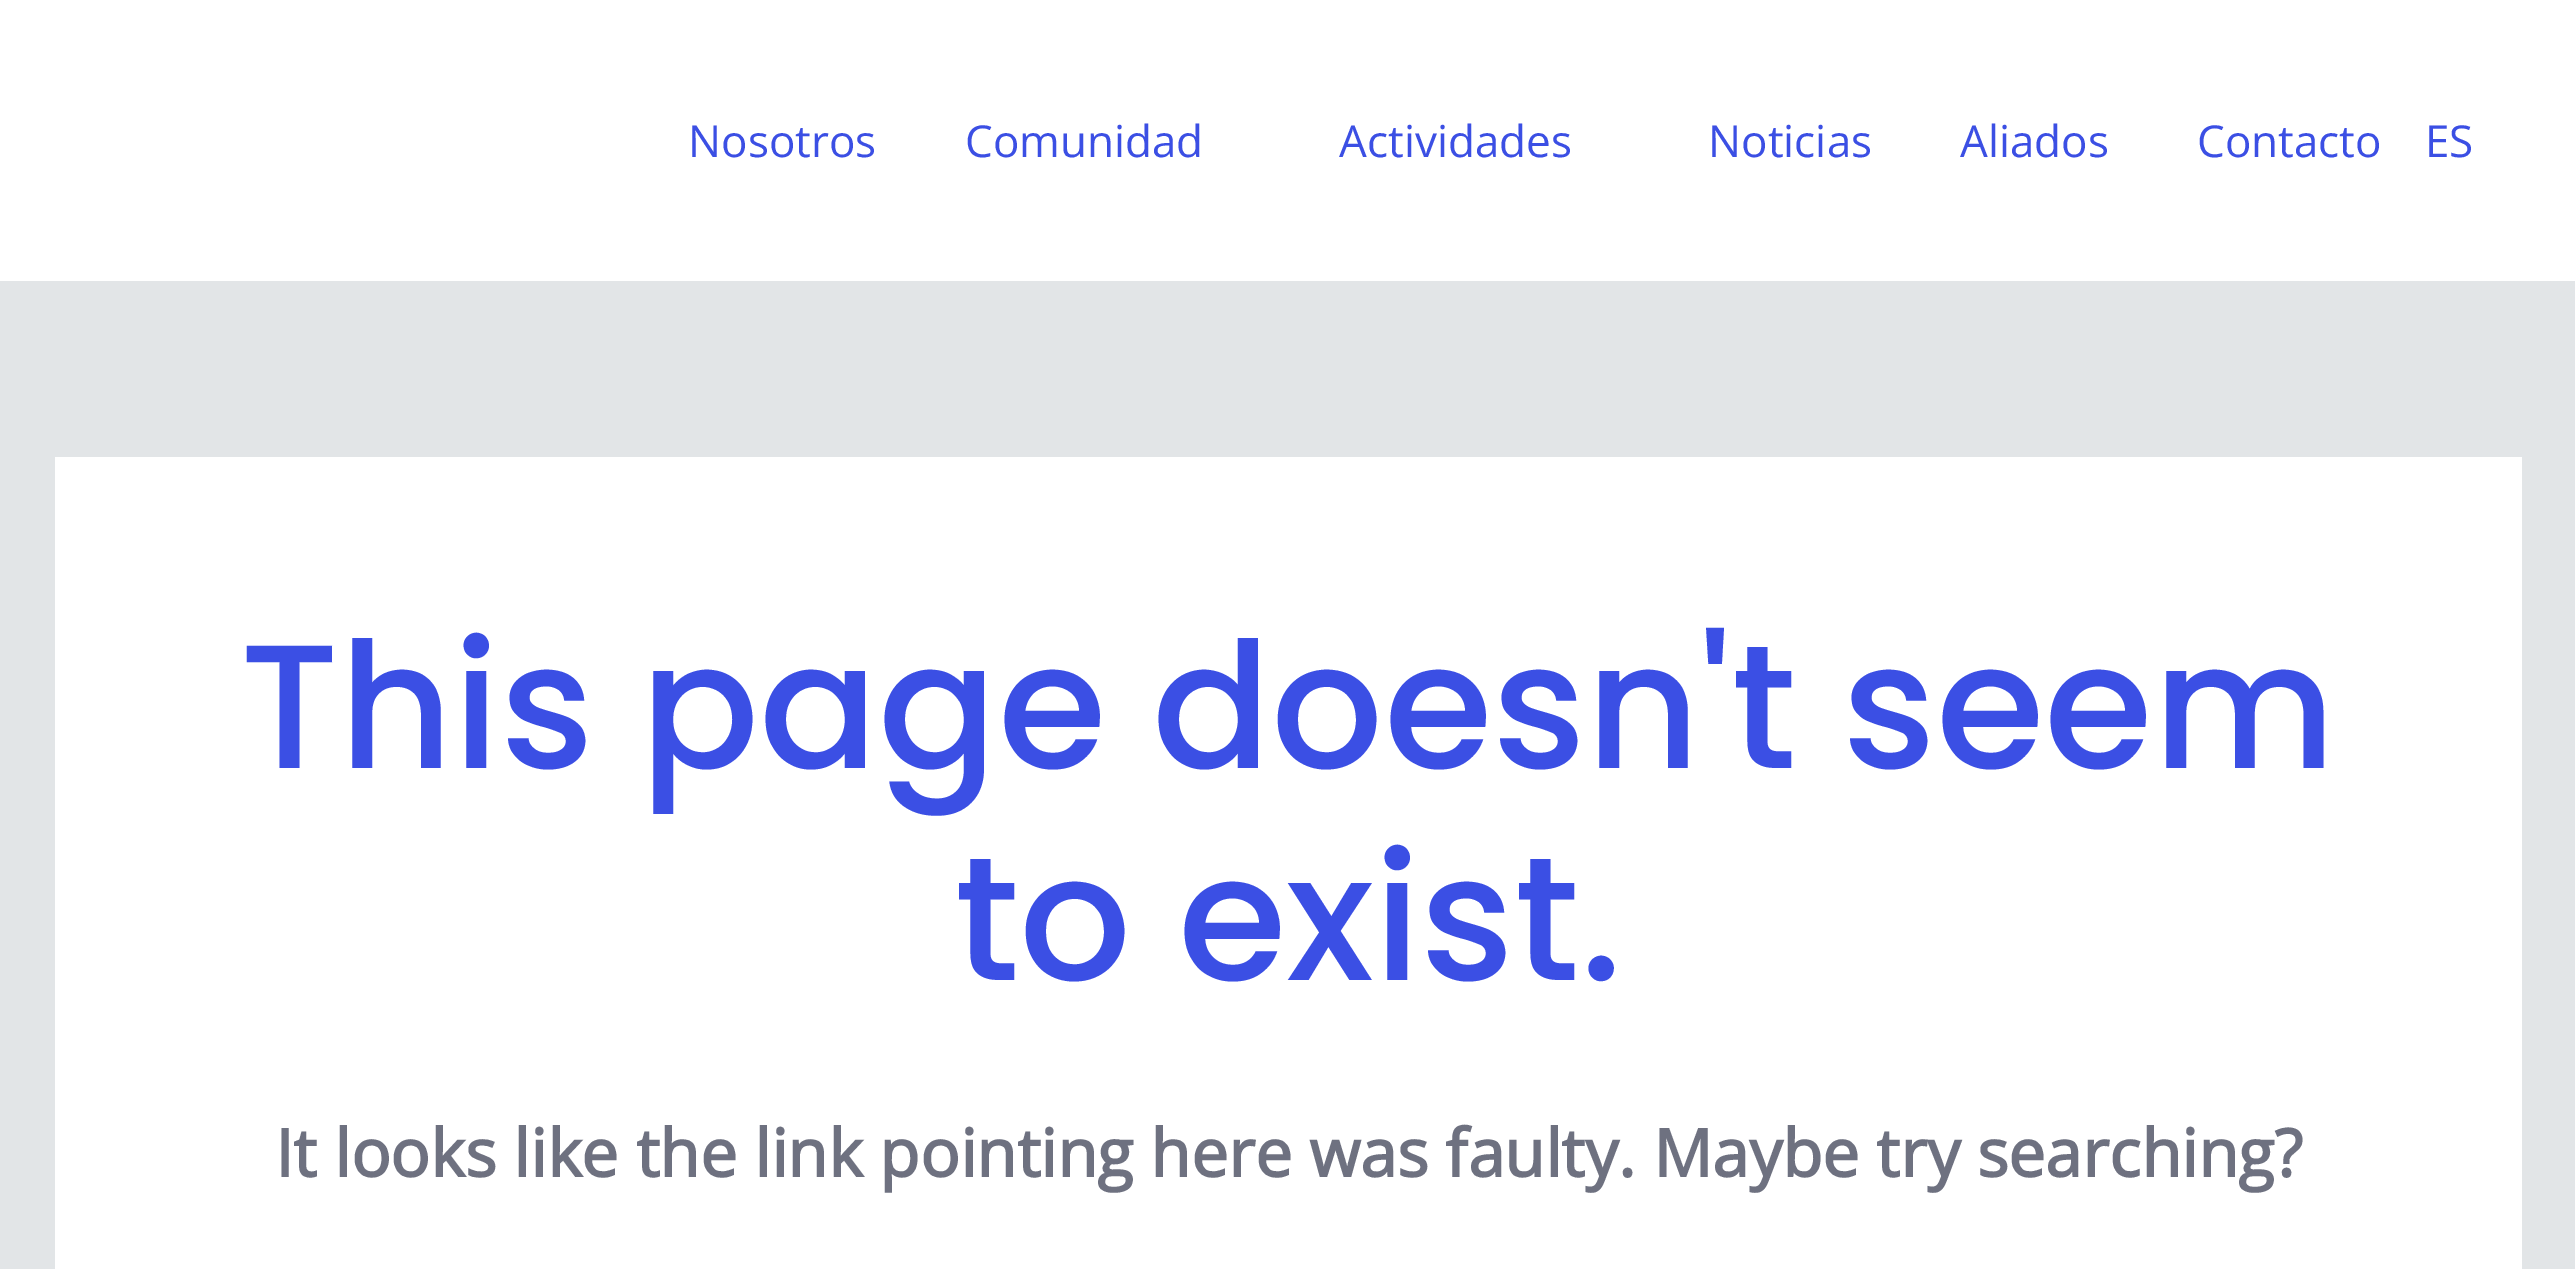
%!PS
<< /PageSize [2575 1269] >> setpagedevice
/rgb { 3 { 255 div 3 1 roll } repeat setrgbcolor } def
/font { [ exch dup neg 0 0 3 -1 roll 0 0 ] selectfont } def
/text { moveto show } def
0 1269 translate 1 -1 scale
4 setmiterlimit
226 229 231 rgb
0 0 2575 1269 rectfill
255 255 255 rgb
0 0 2575 281 rectfill
55 457 2467 812 rectfill
/OpenSans-Regular 44 font
59 79 228 rgb
(Nosotros) 688 157 text
(Comunidad) 965 157 text
(Actividades) 1339 157 text
(Noticias) 1708 157 text
(Aliados) 1960 157 text
(Contacto) 2197 157 text
(ES) 2425 157 text
/Poppins-Medium 176 font
(This page doesn't seem) 240 768 text
(to exist.) 954 980 text
/OpenSans-Bold 66 font
110 113 128 rgb
(It looks like the link pointing here was faulty. Maybe try searching?) 275 1177 text
showpage
